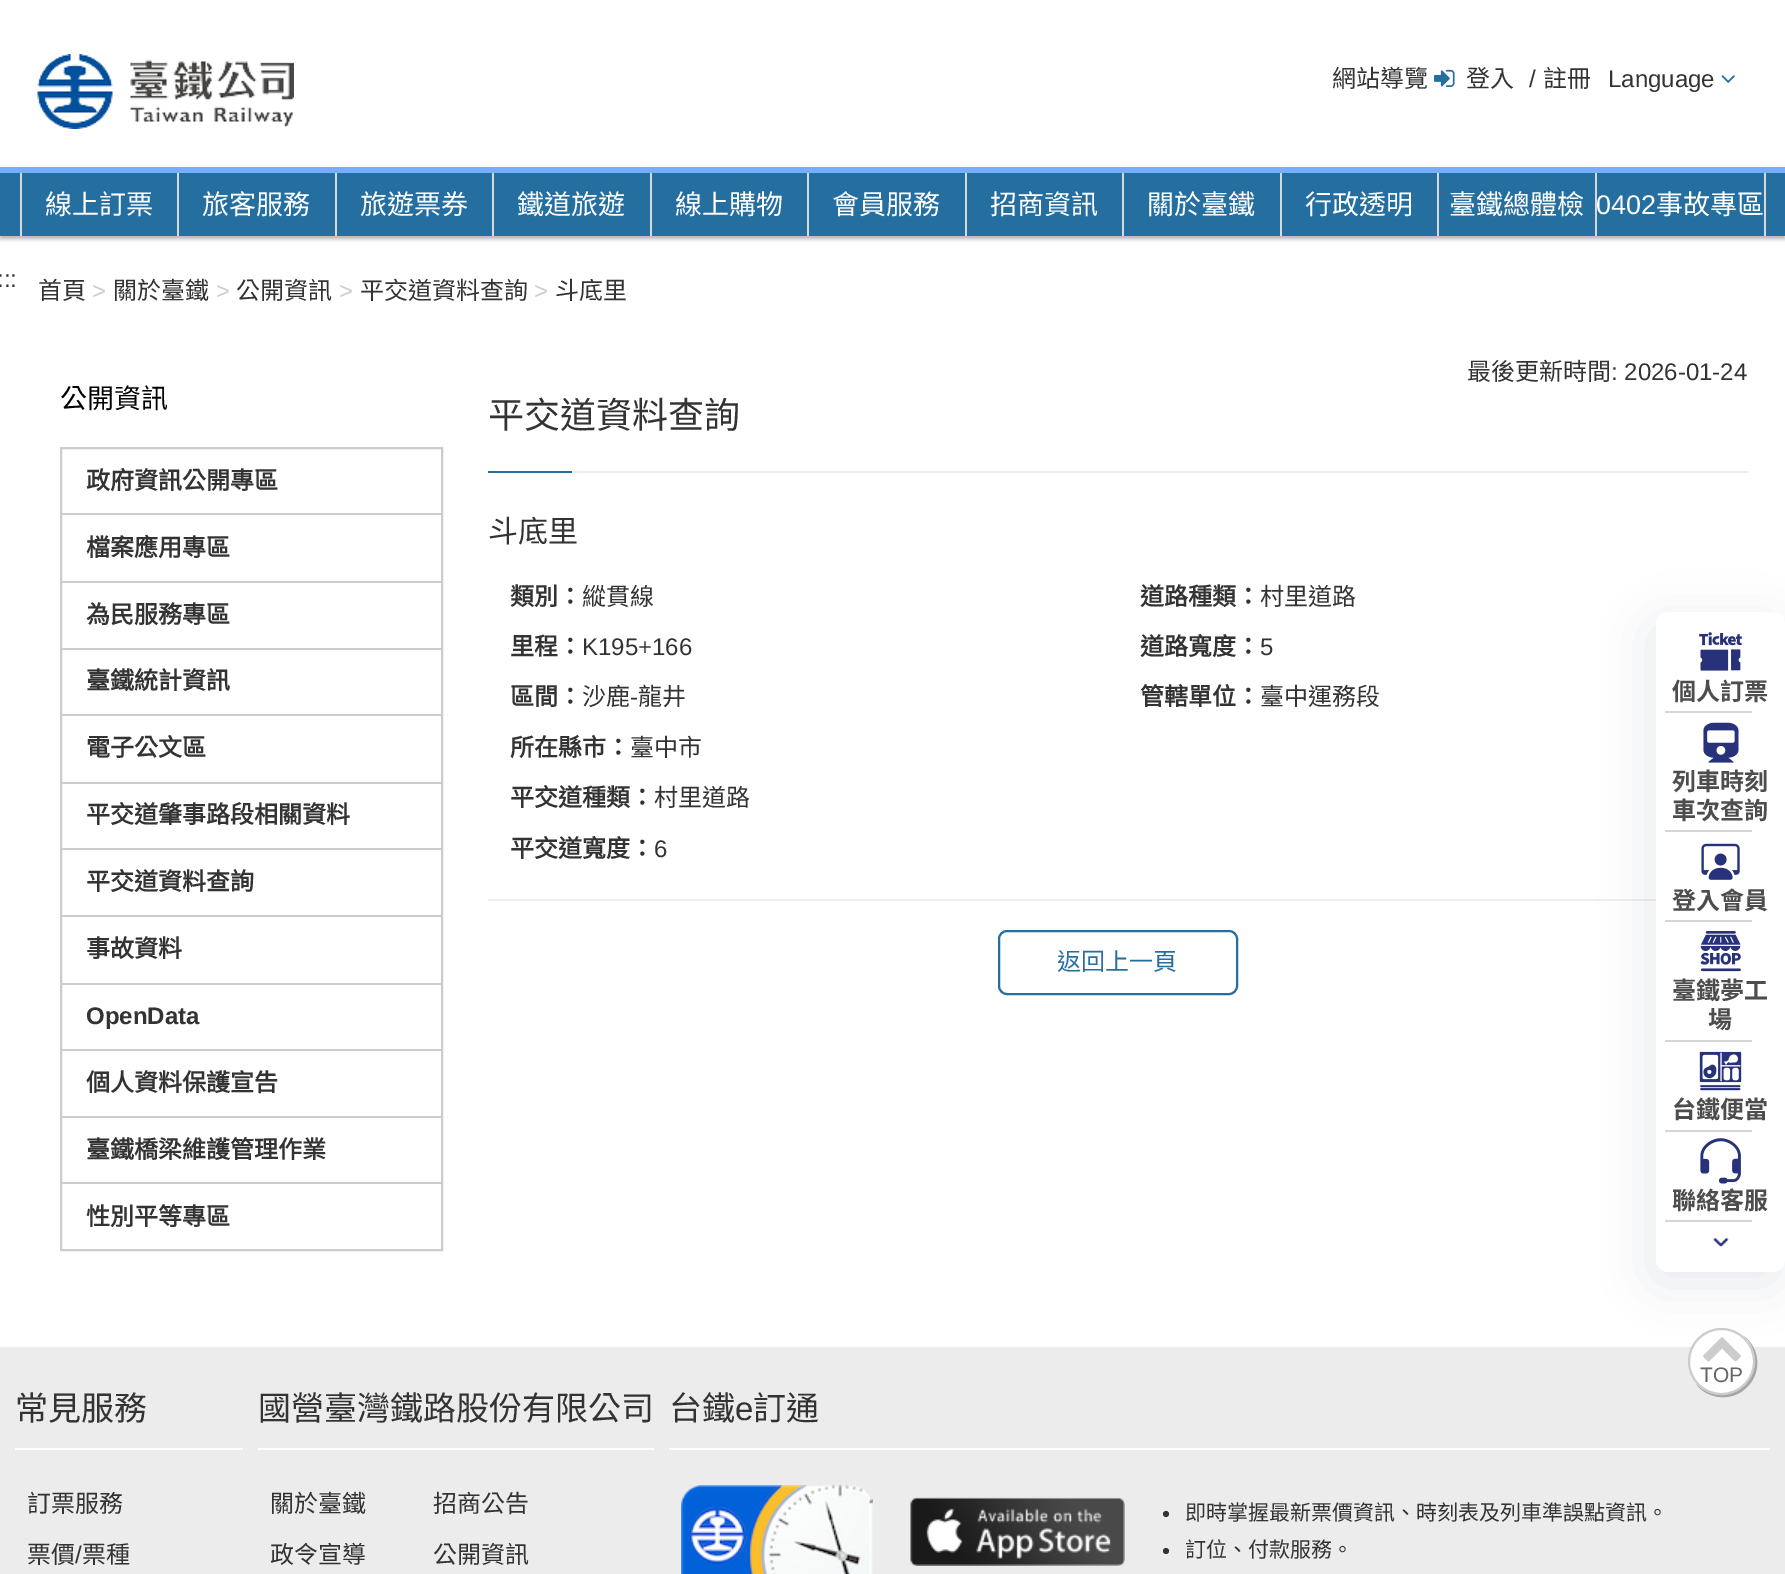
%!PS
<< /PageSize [1785 1574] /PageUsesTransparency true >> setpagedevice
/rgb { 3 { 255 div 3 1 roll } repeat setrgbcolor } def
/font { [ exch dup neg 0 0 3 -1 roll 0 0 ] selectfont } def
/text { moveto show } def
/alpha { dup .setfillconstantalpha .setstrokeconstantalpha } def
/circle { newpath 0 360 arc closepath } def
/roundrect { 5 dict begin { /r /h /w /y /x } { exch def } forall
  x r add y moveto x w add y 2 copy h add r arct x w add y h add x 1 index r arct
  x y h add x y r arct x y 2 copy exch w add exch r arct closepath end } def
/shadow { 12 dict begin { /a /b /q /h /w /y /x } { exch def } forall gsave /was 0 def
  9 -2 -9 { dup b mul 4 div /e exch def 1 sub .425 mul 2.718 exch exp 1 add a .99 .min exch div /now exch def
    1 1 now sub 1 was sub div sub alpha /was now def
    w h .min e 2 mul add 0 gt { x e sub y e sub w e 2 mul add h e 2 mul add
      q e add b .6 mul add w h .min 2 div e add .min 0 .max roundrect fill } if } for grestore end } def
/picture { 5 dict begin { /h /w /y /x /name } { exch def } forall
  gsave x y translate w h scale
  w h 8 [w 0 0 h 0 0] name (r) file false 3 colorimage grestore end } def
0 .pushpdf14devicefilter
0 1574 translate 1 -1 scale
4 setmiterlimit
255 255 255 rgb
0 0 1785 1574 rectfill
(img_01.rgb) 37 54 257 75 picture
(img_02.rgb) 1434 69 21 18 picture
(img_03.rgb) 1721 75 14 8 picture
0 0 0 rgb
0 170 1785 69 0 2 0.3 shadow
37 111 160 rgb
0 173 1785 63 rectfill
120 174 255 rgb
0 167 1785 6 rectfill
217 217 217 rgb
20 173 2 63 rectfill
177 173 2 63 rectfill
335 173 2 63 rectfill
492 173 2 63 rectfill
650 173 2 63 rectfill
807 173 2 63 rectfill
965 173 2 63 rectfill
1122 173 2 63 rectfill
1280 173 2 63 rectfill
1437 173 2 63 rectfill
1764 173 2 63 rectfill
1595 173 2 63 rectfill
204 204 204 rgb
2 setlinewidth
61 448 381 802 rectstroke
62 513 379 2 rectfill
62 581 379 2 rectfill
62 648 379 2 rectfill
62 714 379 2 rectfill
62 782 379 2 rectfill
62 848 379 2 rectfill
62 915 379 2 rectfill
62 983 379 2 rectfill
62 1049 379 2 rectfill
62 1116 379 2 rectfill
62 1182 379 2 rectfill
238 238 238 rgb
572 471 1176 2 rectfill
37 111 160 rgb
488 471 84 2 rectfill
238 238 238 rgb
488 899 1260 2 rectfill
37 111 160 rgb
999 931 238 63 8 roundrect stroke
236 236 236 rgb
0 1347 1785 227 rectfill
gsave
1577 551 moveto 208 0 rlineto 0 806 rlineto -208 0 rlineto closepath 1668 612 moveto 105 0 rlineto 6.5 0 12 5.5 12 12 rcurveto 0 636 rlineto 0 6.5 -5.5 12 -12 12 rcurveto -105 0 rlineto -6.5 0 -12 -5.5 -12 -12 rcurveto 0 -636 rlineto 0 -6.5 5.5 -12 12 -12 rcurveto closepath eoclip newpath
19 29 77 rgb
1650 624 129 660 12 24 0.1 shadow
grestore
0.9 alpha
255 255 255 rgb
1656 612 129 660 12 roundrect fill
1 alpha
(img_04.rgb) 1699 632 43 39 picture
214 214 217 rgb
1665 711 87 2 rectfill
(img_05.rgb) 1703 722 36 41 picture
1665 830 87 2 rectfill
(img_06.rgb) 1701 843 39 37 picture
1665 920 87 2 rectfill
(img_07.rgb) 1700 931 41 41 picture
1665 1040 87 2 rectfill
(img_08.rgb) 1699 1051 43 40 picture
1665 1130 87 2 rectfill
(img_09.rgb) 1700 1138 41 46 picture
1665 1220 87 2 rectfill
(img_10.rgb) 1713 1238 16 9 picture
0.3 alpha
0 0 0 rgb
1696 1384 moveto 12 16 37 18 51 3 rcurveto 15 -14 13 -39 -3 -51 rcurveto 14 13 15 35 1 49 rcurveto -14 14 -36 13 -49 -1 rcurveto closepath fill
1 alpha
255 255 255 rgb
1721.5 1361.5 32.5 circle gsave fill grestore
204 204 204 rgb
stroke
(img_11.rgb) 1703 1337 38 25 picture
255 255 255 rgb
15 1448 228 2 rectfill
258 1448 396 2 rectfill
669 1448 1101 2 rectfill
(img_12.rgb) 681 1485 192 89 picture
(img_13.rgb) 910 1497 215 69 picture
51 51 51 rgb
1166 1514 3 circle fill
1166 1551 3 circle fill
/NotoSansCJKTC-Regular 24 font
(網站導覽) 1332 87 text
(登入) 1466 87 text
/LiberationSans-Regular 24 font
(/) 1529 87 text
/NotoSansCJKTC-Regular 24 font
(註冊) 1543 87 text
/LiberationSans-Regular 24 font
(Language) 1608 87 text
/NotoSansCJKTC-Regular 27 font
255 255 255 rgb
(線上訂票) 45 214 text
(旅客服務) 202 214 text
(旅遊票券) 360 214 text
(鐵道旅遊) 517 214 text
(線上購物) 675 214 text
(會員服務) 832 214 text
(招商資訊) 990 214 text
(關於臺鐵) 1147 214 text
(行政透明) 1305 214 text
(臺鐵總體檢) 1449 214 text
/LiberationSans-Regular 27 font
(0402) 1596 214 text
/NotoSansCJKTC-Regular 27 font
(事故專區) 1656 214 text
/LiberationSans-Regular 24 font
51 51 51 rgb
(:::) -3 287 text
/NotoSansCJKTC-Regular 24 font
(首頁) 38 299 text
/LiberationSans-Regular 24 font
204 204 204 rgb
(>) 92 299 text
/NotoSansCJKTC-Regular 24 font
51 51 51 rgb
(關於臺鐵) 113 299 text
/LiberationSans-Regular 24 font
204 204 204 rgb
(>) 216 299 text
/NotoSansCJKTC-Regular 24 font
51 51 51 rgb
(公開資訊) 236 299 text
/LiberationSans-Regular 24 font
204 204 204 rgb
(>) 339 299 text
/NotoSansCJKTC-Regular 24 font
51 51 51 rgb
(平交道資料查詢) 360 299 text
/LiberationSans-Regular 24 font
204 204 204 rgb
(>) 534 299 text
/NotoSansCJKTC-Regular 24 font
51 51 51 rgb
(斗底里) 555 299 text
/NotoSansCJKTC-Regular 27 font
0 0 0 rgb
(公開資訊) 60 408 text
/NotoSansCJKTC-Bold 24 font
51 51 51 rgb
(政府資訊公開專區) 86 489 text
(檔案應用專區) 86 556 text
(為民服務專區) 86 623 text
(臺鐵統計資訊) 86 689 text
(電子公文區) 86 756 text
(平交道肇事路段相關資料) 86 823 text
(平交道資料查詢) 86 890 text
(事故資料) 86 957 text
/LiberationSans-Bold 24 font
(OpenData) 86 1024 text
/NotoSansCJKTC-Bold 24 font
(個人資料保護宣告) 86 1091 text
(臺鐵橋梁維護管理作業) 86 1158 text
(性別平等專區) 86 1225 text
/NotoSansCJKTC-Regular 24 font
(最後更新時間) 1467 380 text
/LiberationSans-Regular 24 font
(: 2026-01-24) 1611 380 text
/NotoSansCJKTC-Regular 36 font
(平交道資料查詢) 488 428 text
/NotoSansCJKTC-Regular 30 font
(斗底里) 488 542 text
/NotoSansCJKTC-Bold 24 font
(類別：) 510 605 text
/NotoSansCJKTC-Regular 24 font
(縱貫線) 582 605 text
/NotoSansCJKTC-Bold 24 font
(里程：) 510 655 text
/LiberationSans-Regular 24 font
(K195+166) 582 655 text
/NotoSansCJKTC-Bold 24 font
(區間：) 510 705 text
/NotoSansCJKTC-Regular 24 font
(沙鹿) 582 705 text
/LiberationSans-Regular 24 font
(-) 630 705 text
/NotoSansCJKTC-Regular 24 font
(龍井) 638 705 text
/NotoSansCJKTC-Bold 24 font
(所在縣市：) 510 756 text
/NotoSansCJKTC-Regular 24 font
(臺中市) 630 756 text
/NotoSansCJKTC-Bold 24 font
(平交道種類：) 510 806 text
/NotoSansCJKTC-Regular 24 font
(村里道路) 654 806 text
/NotoSansCJKTC-Bold 24 font
(平交道寬度：) 510 857 text
/LiberationSans-Regular 24 font
(6) 654 857 text
/NotoSansCJKTC-Bold 24 font
(道路種類：) 1140 605 text
/NotoSansCJKTC-Regular 24 font
(村里道路) 1260 605 text
/NotoSansCJKTC-Bold 24 font
(道路寬度：) 1140 655 text
/LiberationSans-Regular 24 font
(5) 1260 655 text
/NotoSansCJKTC-Bold 24 font
(管轄單位：) 1140 705 text
/NotoSansCJKTC-Regular 24 font
(臺中運務段) 1260 705 text
37 111 160 rgb
(返回上一頁) 1057 970 text
/NotoSansTC-Bold 24 font
77 77 77 rgb
(個人訂票) 1672 700 text
(列車時刻) 1672 790 text
(車次查詢) 1672 819 text
(登入會員) 1672 909 text
(臺鐵夢工) 1672 999 text
(場) 1708 1028 text
(台鐵便當) 1672 1118 text
(聯絡客服) 1672 1209 text
/LiberationSans-Regular 21 font
102 102 102 rgb
(TOP) 1700 1382 text
/NotoSansCJKTC-Regular 33 font
51 51 51 rgb
(常見服務) 15 1420 text
/NotoSansCJKTC-Regular 24 font
(訂票服務) 27 1512 text
(票價) 27 1563 text
/LiberationSans-Regular 24 font
(/) 75 1563 text
/NotoSansCJKTC-Regular 24 font
(票種) 82 1563 text
/NotoSansCJKTC-Regular 33 font
(國營臺灣鐵路股份有限公司) 258 1420 text
/NotoSansCJKTC-Regular 24 font
(關於臺鐵) 270 1512 text
(政令宣導) 270 1563 text
(招商公告) 433 1512 text
(公開資訊) 433 1563 text
/NotoSansCJKTC-Regular 33 font
(台鐵) 669 1420 text
/LiberationSans-Regular 33 font
(e) 735 1420 text
/NotoSansCJKTC-Regular 33 font
(訂通) 753 1420 text
/NotoSansCJKTC-Regular 21 font
(即時掌握最新票價資訊、時刻表及列車準誤點資訊。) 1185 1520 text
(訂位、付款服務。) 1185 1557 text
.poppdf14devicefilter showpage
